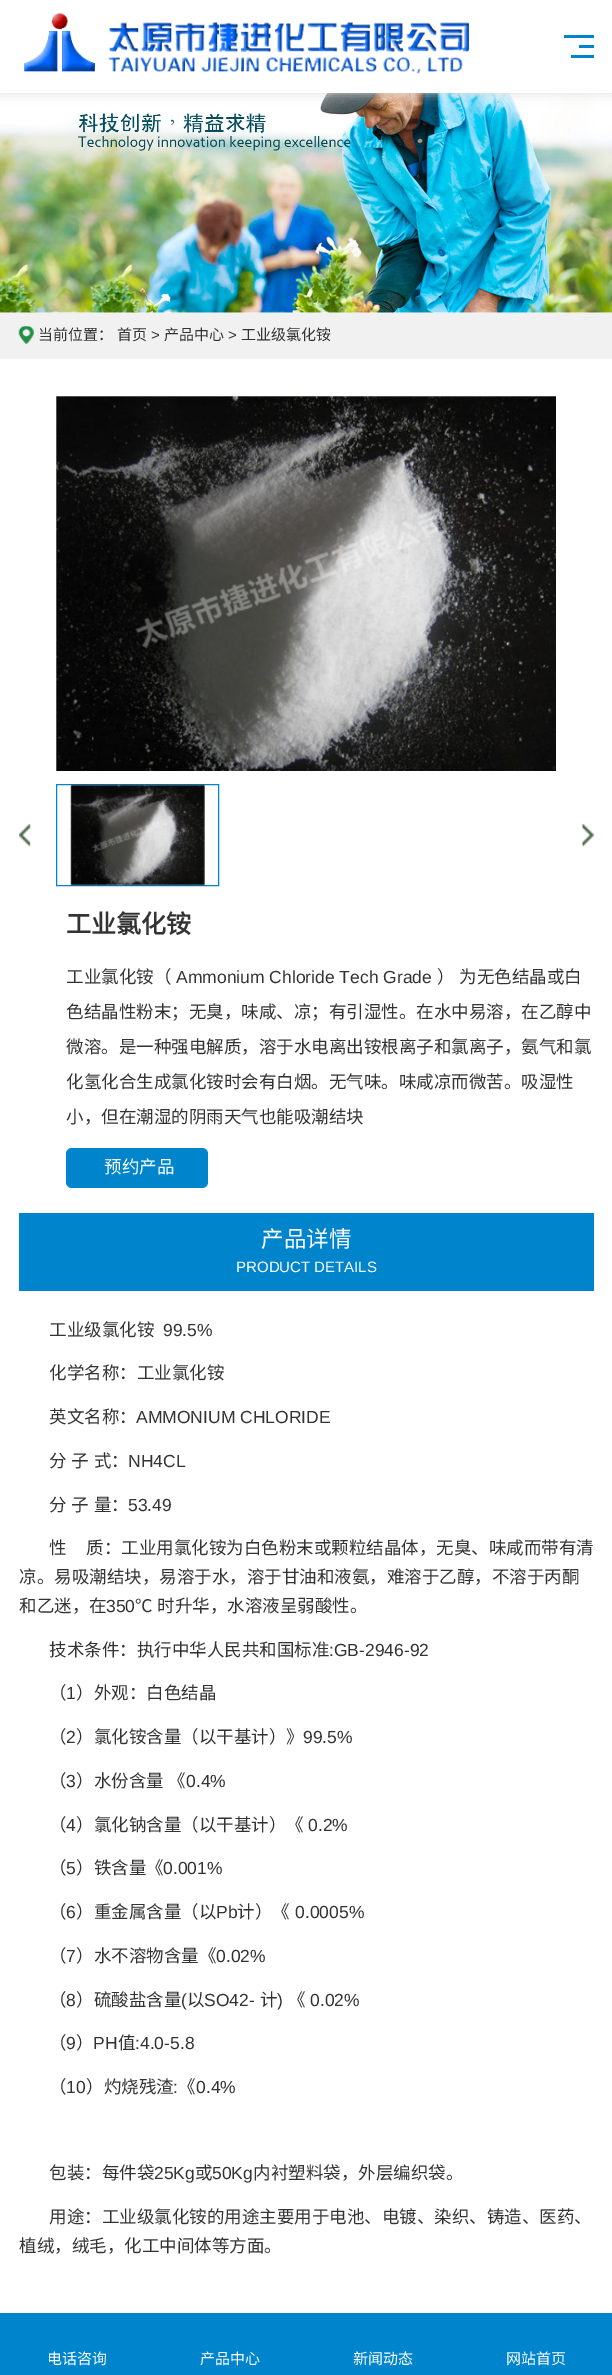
%!PS
<< /PageSize [612 2375] /PageUsesTransparency true >> setpagedevice
/rgb { 3 { 255 div 3 1 roll } repeat setrgbcolor } def
/font { [ exch dup neg 0 0 3 -1 roll 0 0 ] selectfont } def
/text { moveto show } def
/alpha { dup .setfillconstantalpha .setstrokeconstantalpha } def
/roundrect { 5 dict begin { /r /h /w /y /x } { exch def } forall
  x r add y moveto x w add y 2 copy h add r arct x w add y h add x 1 index r arct
  x y h add x y r arct x y 2 copy exch w add exch r arct closepath end } def
/shadow { 12 dict begin { /a /b /q /h /w /y /x } { exch def } forall gsave /was 0 def
  9 -2 -9 { dup b mul 4 div /e exch def 1 sub .425 mul 2.718 exch exp 1 add a .99 .min exch div /now exch def
    1 1 now sub 1 was sub div sub alpha /was now def
    w h .min e 2 mul add 0 gt { x e sub y e sub w e 2 mul add h e 2 mul add
      q e add b .6 mul add w h .min 2 div e add .min 0 .max roundrect fill } if } for grestore end } def
/picture { 5 dict begin { /h /w /y /x /name } { exch def } forall
  gsave x y translate w h scale
  w h 8 [w 0 0 h 0 0] name (r) file false 3 colorimage grestore end } def
0 .pushpdf14devicefilter
0 2375 translate 1 -1 scale
4 setmiterlimit
255 255 255 rgb
0 0 612 2375 rectfill
(img_02.rgb) 0 93 612 220 picture
221 221 221 rgb
0 0 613 93 0 6 1 shadow
255 255 255 rgb
0 0 612 93 rectfill
(img_01.rgb) 24 13 446 61 picture
0 132 203 rgb
564 35 30 3 rectfill
579 45 15 3 rectfill
571 55 23 3 rectfill
241 241 241 rgb
0 313 612 46 rectfill
(img_03.rgb) 18 326 16 18 picture
(img_04.rgb) 56 396 500 375 picture
(img_05.rgb) 19 824 12 23 picture
0 132 203 rgb
56.5 784.5 162 101 rectstroke
(img_06.rgb) 70 784 135 102 picture
(img_07.rgb) 581 824 13 23 picture
66 1148 142 40 6 roundrect fill
19 1213 575 78 rectfill
0 2313 612 62 rectfill
/NotoSansCJKSC-Regular 15 font
51 51 51 rgb
(当前位置：) 38 340 text
(首页) 117 340 text
/LiberationSans-Regular 15 font
(>) 151 340 text
/NotoSansCJKSC-Regular 15 font
(产品中心) 164 340 text
/LiberationSans-Regular 15 font
(>) 228 340 text
/NotoSansCJKSC-Regular 15 font
(工业级氯化铵) 241 340 text
/NotoSansCJKSC-Bold 25 font
(工业氯化铵) 66 933 text
/NotoSansCJKSC-Regular 17.5 font
(工业氯化铵（) 66 983 text
/LiberationSans-Regular 17.5 font
(Ammonium Chloride Tech Grade) 176 983 text
/NotoSansCJKSC-Regular 17.5 font
(）) 437 983 text
(为无色结晶或白) 459 983 text
(色结晶性粉末；无臭，味咸、凉；有引湿性。在水中易溶，在乙醇中) 66 1018 text
(微溶。是一种强电解质，溶于水电离出铵根离子和氯离子，氨气和氯) 66 1053 text
(化氢化合生成氯化铵时会有白烟。无气味。味咸凉而微苦。吸湿性) 66 1088 text
(小，但在潮湿的阴雨天气也能吸潮结块) 66 1123 text
255 255 255 rgb
(预约产品) 104 1173 text
/NotoSansCJKSC-Regular 22.5 font
(产品详情) 261 1247 text
/LiberationSans-Regular 15 font
(PRODUCT DETAILS) 236 1272 text
/NotoSansCJKSC-Regular 17.5 font
51 51 51 rgb
(工业级氯化铵) 49 1336 text
/LiberationSans-Regular 17.5 font
(99.5%) 163 1336 text
/NotoSansCJKSC-Regular 17.5 font
(化学名称：工业氯化铵) 49 1379 text
(英文名称：) 49 1423 text
/LiberationSans-Regular 17.5 font
(AMMONIUM CHLORIDE) 136 1423 text
/NotoSansCJKSC-Regular 17.5 font
49 1467 moveto 1 0 32 (分 子 式：) widthshow
/LiberationSans-Regular 17.5 font
(NH4CL) 128 1467 text
/NotoSansCJKSC-Regular 17.5 font
49 1511 moveto 1 0 32 (分 子 量：) widthshow
/LiberationSans-Regular 17.5 font
(53.49) 128 1511 text
/NotoSansCJKSC-Regular 17.5 font
(性) 49 1554 text
(质：工业用氯化铵为白色粉末或颗粒结晶体，无臭、味咸而带有清) 86 1554 text
(凉。易吸潮结块，易溶于水，溶于甘油和液氨，难溶于乙醇，不溶于丙酮) 19 1583 text
(和乙迷，在) 19 1612 text
/LiberationSans-Regular 17.5 font
(350) 106 1612 text
/NotoSansCJKSC-Regular 17.5 font
135 1612 moveto 1 0 32 (℃ 时升华，水溶液呈弱酸性。) widthshow
(技术条件：执行中华人民共和国标准) 49 1656 text
/LiberationSans-Regular 17.5 font
(:GB-2946-92) 329 1656 text
/NotoSansCJKSC-Regular 17.5 font
(（) 49 1699 text
/LiberationSans-Regular 17.5 font
(1) 66 1699 text
/NotoSansCJKSC-Regular 17.5 font
(）外观：白色结晶) 76 1699 text
(（) 49 1743 text
/LiberationSans-Regular 17.5 font
(2) 66 1743 text
/NotoSansCJKSC-Regular 17.5 font
(）氯化铵含量（以干基计）》) 76 1743 text
/LiberationSans-Regular 17.5 font
(99.5%) 303 1743 text
/NotoSansCJKSC-Regular 17.5 font
(（) 49 1787 text
/LiberationSans-Regular 17.5 font
(3) 66 1787 text
/NotoSansCJKSC-Regular 17.5 font
76 1787 moveto 1 0 32 (）水份含量 《) widthshow
/LiberationSans-Regular 17.5 font
(0.4%) 186 1787 text
/NotoSansCJKSC-Regular 17.5 font
(（) 49 1831 text
/LiberationSans-Regular 17.5 font
(4) 66 1831 text
/NotoSansCJKSC-Regular 17.5 font
(）氯化钠含量（以干基计）《) 76 1831 text
/LiberationSans-Regular 17.5 font
(0.2%) 308 1831 text
/NotoSansCJKSC-Regular 17.5 font
(（) 49 1874 text
/LiberationSans-Regular 17.5 font
(5) 66 1874 text
/NotoSansCJKSC-Regular 17.5 font
(）铁含量《) 76 1874 text
/LiberationSans-Regular 17.5 font
(0.001%) 163 1874 text
/NotoSansCJKSC-Regular 17.5 font
(（) 49 1918 text
/LiberationSans-Regular 17.5 font
(6) 66 1918 text
/NotoSansCJKSC-Regular 17.5 font
(）重金属含量（以) 76 1918 text
/LiberationSans-Regular 17.5 font
(Pb) 216 1918 text
/NotoSansCJKSC-Regular 17.5 font
(计）《) 237 1918 text
/LiberationSans-Regular 17.5 font
(0.0005%) 295 1918 text
/NotoSansCJKSC-Regular 17.5 font
(（) 49 1962 text
/LiberationSans-Regular 17.5 font
(7) 66 1962 text
/NotoSansCJKSC-Regular 17.5 font
(）水不溶物含量《) 76 1962 text
/LiberationSans-Regular 17.5 font
(0.02%) 216 1962 text
/NotoSansCJKSC-Regular 17.5 font
(（) 49 2006 text
/LiberationSans-Regular 17.5 font
(8) 66 2006 text
/NotoSansCJKSC-Regular 17.5 font
(）硫酸盐含量) 76 2006 text
/LiberationSans-Regular 17.5 font
(\() 181 2006 text
/NotoSansCJKSC-Regular 17.5 font
(以) 187 2006 text
/LiberationSans-Regular 17.5 font
(SO42-) 204 2006 text
/NotoSansCJKSC-Regular 17.5 font
(计) 260 2006 text
/LiberationSans-Regular 17.5 font
(\)) 277 2006 text
/NotoSansCJKSC-Regular 17.5 font
(《) 288 2006 text
/LiberationSans-Regular 17.5 font
(0.02%) 310 2006 text
/NotoSansCJKSC-Regular 17.5 font
(（) 49 2049 text
/LiberationSans-Regular 17.5 font
(9) 66 2049 text
/NotoSansCJKSC-Regular 17.5 font
(）) 76 2049 text
/LiberationSans-Regular 17.5 font
(PH) 93 2049 text
/NotoSansCJKSC-Regular 17.5 font
(值) 118 2049 text
/LiberationSans-Regular 17.5 font
(:4.0-5.8) 135 2049 text
/NotoSansCJKSC-Regular 17.5 font
(（) 49 2093 text
/LiberationSans-Regular 17.5 font
(10) 66 2093 text
/NotoSansCJKSC-Regular 17.5 font
(）灼烧残渣) 86 2093 text
/LiberationSans-Regular 17.5 font
(:) 173 2093 text
/NotoSansCJKSC-Regular 17.5 font
(《) 178 2093 text
/LiberationSans-Regular 17.5 font
(0.4%) 196 2093 text
/NotoSansCJKSC-Regular 17.5 font
(包装：每件袋) 49 2179 text
/LiberationSans-Regular 17.5 font
(25Kg) 154 2179 text
/NotoSansCJKSC-Regular 17.5 font
(或) 195 2179 text
/LiberationSans-Regular 17.5 font
(50Kg) 212 2179 text
/NotoSansCJKSC-Regular 17.5 font
(内衬塑料袋，外层编织袋。) 253 2179 text
(用途：工业级氯化铵的用途主要用于电池、电镀、染织、铸造、医药、) 49 2223 text
(植绒，绒毛，化工中间体等方面。) 19 2252 text
/NotoSansCJKSC-Regular 15 font
255 255 255 rgb
(电话咨询) 47 2364 text
(产品中心) 200 2364 text
(新闻动态) 353 2364 text
(网站首页) 506 2364 text
.poppdf14devicefilter showpage
